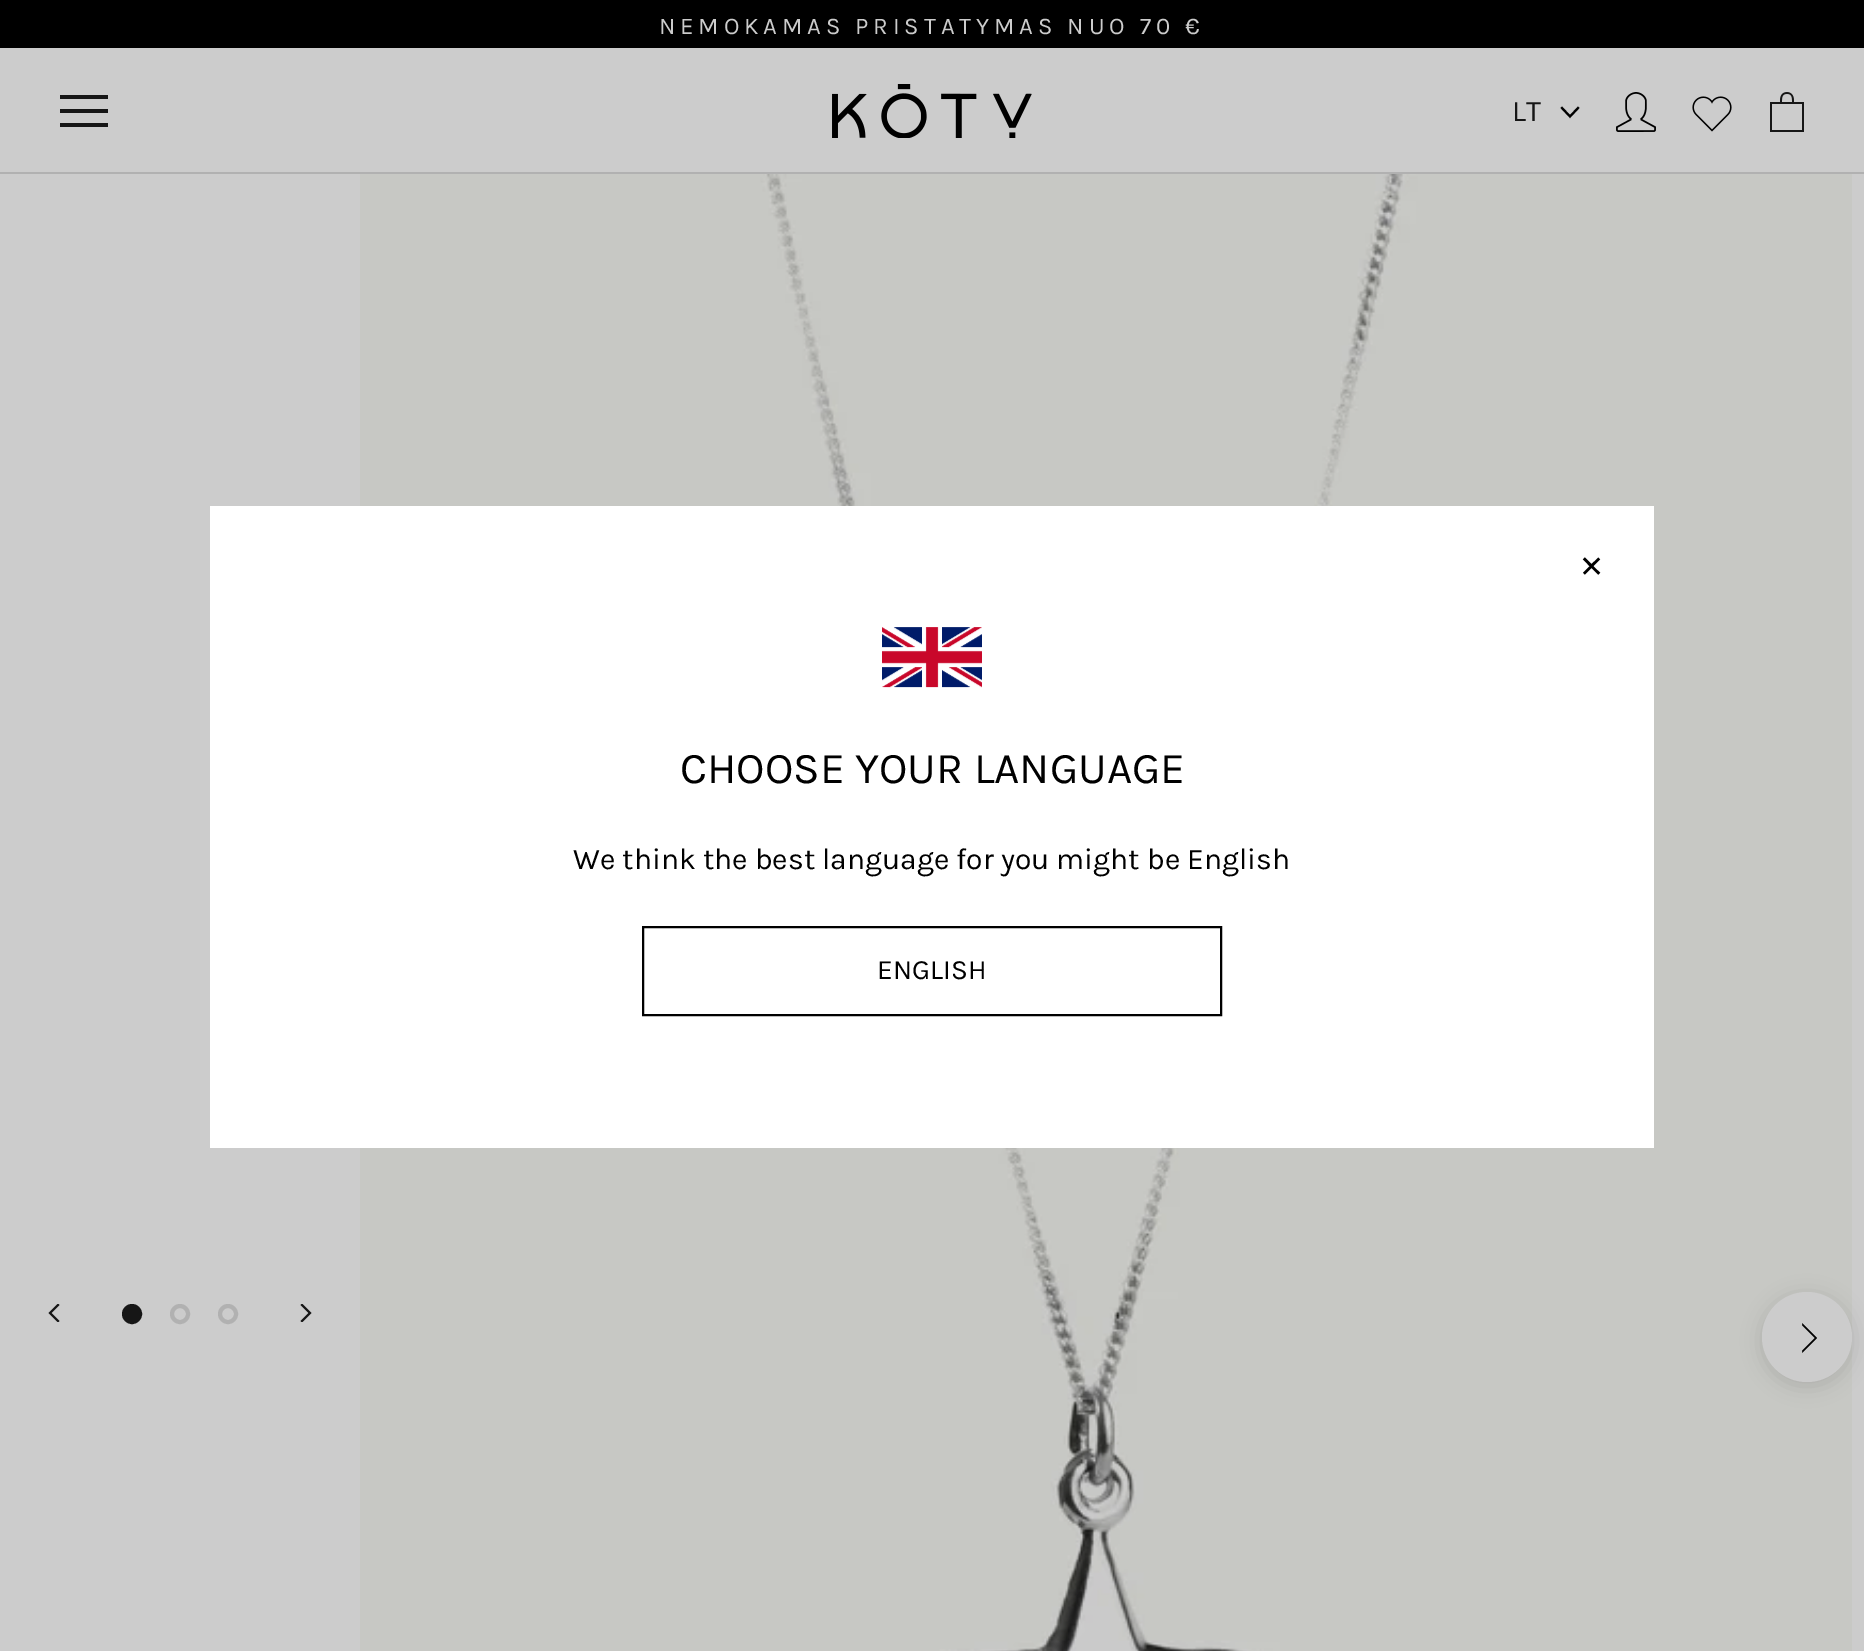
%!PS
<< /PageSize [1864 1651] /PageUsesTransparency true >> setpagedevice
/rgb { 3 { 255 div 3 1 roll } repeat setrgbcolor } def
/font { [ exch dup neg 0 0 3 -1 roll 0 0 ] selectfont } def
/text { moveto show } def
/alpha { dup .setfillconstantalpha .setstrokeconstantalpha } def
/circle { newpath 0 360 arc closepath } def
/roundrect { 5 dict begin { /r /h /w /y /x } { exch def } forall
  x r add y moveto x w add y 2 copy h add r arct x w add y h add x 1 index r arct
  x y h add x y r arct x y 2 copy exch w add exch r arct closepath end } def
/shadow { 12 dict begin { /a /b /q /h /w /y /x } { exch def } forall gsave /was 0 def
  9 -2 -9 { dup b mul 4 div /e exch def 1 sub .425 mul 2.718 exch exp 1 add a .99 .min exch div /now exch def
    1 1 now sub 1 was sub div sub alpha /was now def
    w h .min e 2 mul add 0 gt { x e sub y e sub w e 2 mul add h e 2 mul add
      q e add b .6 mul add w h .min 2 div e add .min 0 .max roundrect fill } if } for grestore end } def
/picture { 5 dict begin { /h /w /y /x /name } { exch def } forall
  gsave x y translate w h scale
  w h 8 [w 0 0 h 0 0] name (r) file false 3 colorimage grestore end } def
0 .pushpdf14devicefilter
0 1651 translate 1 -1 scale
4 setmiterlimit
204 204 204 rgb
0 0 1864 1651 rectfill
0 0 0 rgb
0 0 1864 48 rectfill
177 177 177 rgb
0 172 1864 2 rectfill
22 22 22 rgb
60 127 moveto 0 -4 rlineto 48 0 rlineto 0 4 rlineto closepath 60 109 moveto 48 0 rlineto 0 4 rlineto -48 0 rlineto closepath 60 95 moveto 48 0 rlineto 0 4 rlineto -48 0 rlineto closepath fill
(img_01.rgb) 832 84 200 54 picture
0 0 0 rgb
2.1 setlinewidth
2 setlinecap
1578 108 moveto -8 8.5 rlineto -8 -8.5 rlineto stroke
(img_02.rgb) 1616 92 40 40 picture
(img_03.rgb) 1692 96 40 36 picture
(img_04.rgb) 1770 92 34 40 picture
gsave
48 1304 12 18 rectclip
22 22 22 rgb
2 setlinewidth
58 1321 moveto -8 -8 rlineto 8 -8 rlineto stroke
grestore
22 22 22 rgb
132 1314 8 circle gsave fill grestore
4 setlinewidth
0 setlinecap
stroke
177 177 177 rgb
180 1314 8 circle stroke
228 1314 8 circle stroke
gsave
300 1304 12 18 rectclip
22 22 22 rgb
2 setlinewidth
2 setlinecap
302 1321 moveto 8 -8 rlineto -8 -8 rlineto stroke
grestore
(img_05.rgb) 360 174 1492 1477 picture
43 43 43 rgb
1762 1296 90 90 45 10 0.15 shadow
204 204 204 rgb
1807 1337 45 circle fill
(img_06.rgb) 1802 1323 15 30 picture
255 255 255 rgb
210 506 1444 642 rectfill
(img_07.rgb) 882 627 100 61 picture
0 0 0 rgb
2 setlinewidth
643 927 578 88 rectstroke
/Karla-Regular 24 font
204 204 204 rgb
659 34 moveto 4.8 0 (NEMOKAMAS PRISTATYMAS NUO 70 €) ashow
/Karla-Regular 30 font
22 22 22 rgb
(LT) 1512 121 text
/DejaVuSans-Regular 30 font
0 0 0 rgb
(✕) 1579 577 text
/Karla-Regular 44 font
(CHOOSE YOUR LANGUAGE) 680 783 text
/Karla-Regular 30 font
(We think the best language for you might be English) 573 869 text
/Karla-Regular 28 font
(ENGLISH) 877 979 text
.poppdf14devicefilter showpage
